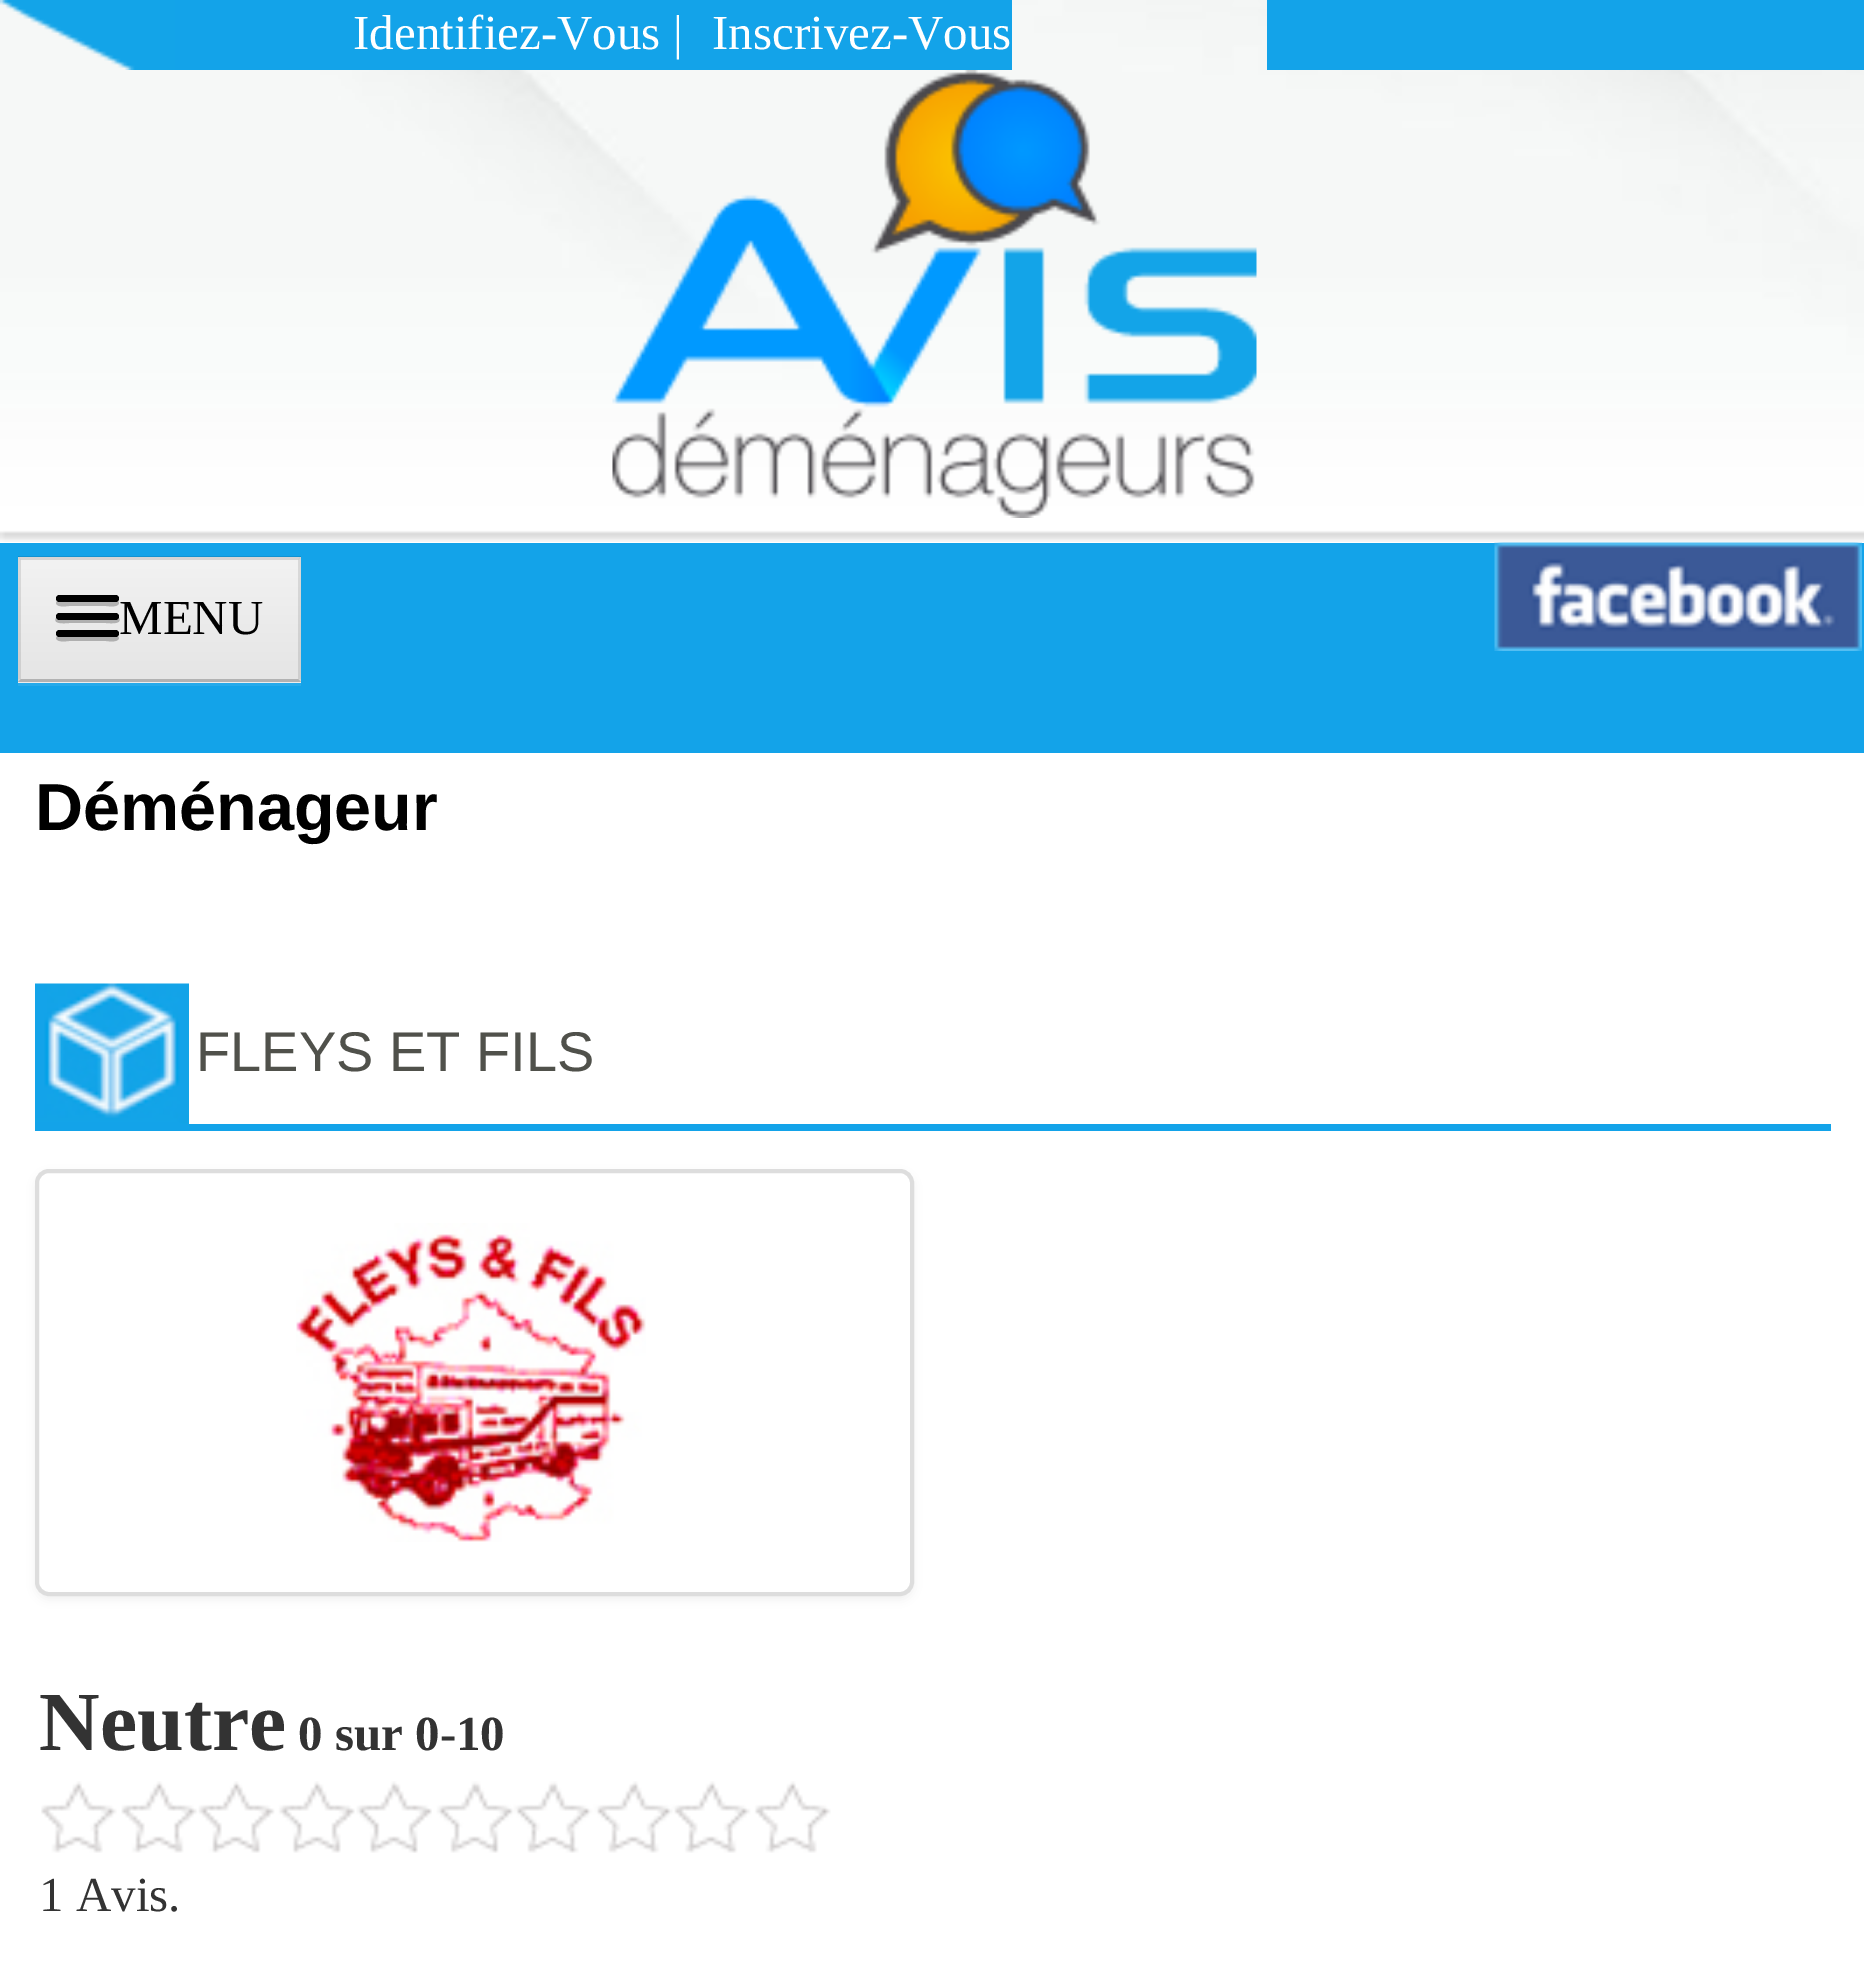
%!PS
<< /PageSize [1864 1983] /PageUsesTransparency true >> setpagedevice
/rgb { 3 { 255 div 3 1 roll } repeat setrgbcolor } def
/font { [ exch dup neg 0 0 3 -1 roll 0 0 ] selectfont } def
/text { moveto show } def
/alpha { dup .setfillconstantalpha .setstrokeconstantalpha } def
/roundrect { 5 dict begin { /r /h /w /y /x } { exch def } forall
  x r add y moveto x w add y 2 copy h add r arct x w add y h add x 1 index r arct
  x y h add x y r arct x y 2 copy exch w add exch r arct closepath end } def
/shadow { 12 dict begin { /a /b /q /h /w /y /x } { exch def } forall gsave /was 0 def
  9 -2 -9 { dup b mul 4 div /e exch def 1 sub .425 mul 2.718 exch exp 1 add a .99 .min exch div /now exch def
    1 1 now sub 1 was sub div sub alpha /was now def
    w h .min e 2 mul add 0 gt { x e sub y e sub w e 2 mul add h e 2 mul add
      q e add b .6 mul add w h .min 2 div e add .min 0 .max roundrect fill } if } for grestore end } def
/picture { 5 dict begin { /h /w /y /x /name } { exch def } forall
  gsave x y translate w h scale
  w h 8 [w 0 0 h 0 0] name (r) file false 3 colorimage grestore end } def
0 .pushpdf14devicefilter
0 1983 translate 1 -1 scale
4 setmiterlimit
255 255 255 rgb
0 0 1864 1983 rectfill
(img_01.rgb) 0 0 1864 542 picture
(img_02.rgb) 0 0 175 70 picture
19 163 233 rgb
175 0 837 70 rectfill
1267 0 597 70 rectfill
(img_03.rgb) 612 70 645 448 picture
0 543 1864 210 rectfill
37 170 235 rgb
18 683 283 3 rectfill
237 237 237 rgb
18 557 283 126 rectfill
gsave 18 560 moveto 283 0 rlineto 0 119 rlineto -283 0 rlineto closepath clip newpath
<< /ShadingType 2 /ColorSpace /DeviceRGB /Coords [159 560 159 679] /Extend [true true] /Function << /FunctionType 2 /Domain [0 1] /C0 [0.949 0.949 0.949] /C1 [0.898 0.898 0.898] /N 1 >> >> shfill grestore
0.1 alpha
0 0 0 rgb
18 556 moveto 283 0 rlineto -3 4 rlineto -277 0 rlineto closepath fill
301 556 moveto 0 126 rlineto -3 -3 rlineto 0 -119 rlineto closepath fill
0.25 alpha
301 682 moveto -283 0 rlineto 3 -3 rlineto 277 0 rlineto closepath fill
0.1 alpha
18 682 moveto 0 -126 rlineto 3 4 rlineto 0 119 rlineto closepath fill
1 alpha
178 178 178 rgb
57 600 moveto -1 3 rlineto 1 5 11 3 13 3 rcurveto 37 0 rlineto 2 0 12 2 13 -3 rcurveto -1 -3 rlineto -2 2 rlineto -57 0 rlineto closepath fill
0 0 0 rgb
56 595 63 7 3.5 roundrect fill
176 176 176 rgb
56 618 moveto -4 7 12 5 13 5 rcurveto 37 0 rlineto 1 0 17 2 13 -5 rcurveto -1 1 -2 2 -3 2 rcurveto -56 0 rlineto -2 0 -3 -1 -4 -2 rcurveto closepath fill
0 0 0 rgb
56 613 63 7 3.5 roundrect fill
175 175 175 rgb
57 636 moveto -1 2 rlineto 1 5 11 3 13 3 rcurveto 37 0 rlineto 2 0 12 2 13 -3 rcurveto -1 -2 rlineto -2 1 rlineto -57 0 rlineto closepath fill
0 0 0 rgb
56 630 63 7 3.5 roundrect fill
(img_04.rgb) 1494 542 368 109 picture
(img_05.rgb) 35 983 154 141 picture
19 163 233 rgb
35 1124 1796 7 rectfill
gsave
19 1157 moveto 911 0 rlineto 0 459 rlineto -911 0 rlineto closepath 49 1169 moveto 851 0 rlineto 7.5 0 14 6.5 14 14 rcurveto 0 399 rlineto 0 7.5 -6.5 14 -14 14 rcurveto -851 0 rlineto -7.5 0 -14 -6.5 -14 -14 rcurveto 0 -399 rlineto 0 -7.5 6.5 -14 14 -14 rcurveto closepath eoclip newpath
0 0 0 rgb
35 1173 879 427 14 5 0.06 shadow
grestore
221 221 221 rgb
4 setlinewidth
37 1171 875 423 12 roundrect stroke
(img_06.rgb) 296 1223 350 319 picture
(img_07.rgb) 41 1781 790 72 picture
/LiberationSerif-Regular 49 font
255 255 255 rgb
(Identifiez-Vous |) 353 49 text
(Inscrivez-Vous) 712 49 text
0 0 0 rgb
(MENU) 119 634 text
/LiberationSans-Bold 66.5 font
(Déménageur) 35 830 text
/LiberationSans-Regular 56 font
80 81 75 rgb
(FLEYS ET FILS) 196 1071 text
/LiberationSerif-Bold 84 font
51 51 51 rgb
(Neutre) 39 1750 text
/LiberationSerif-Bold 49 font
(0 sur 0-10) 298 1750 text
/LiberationSerif-Regular 49 font
(1 Avis.) 39 1911 text
.poppdf14devicefilter showpage
